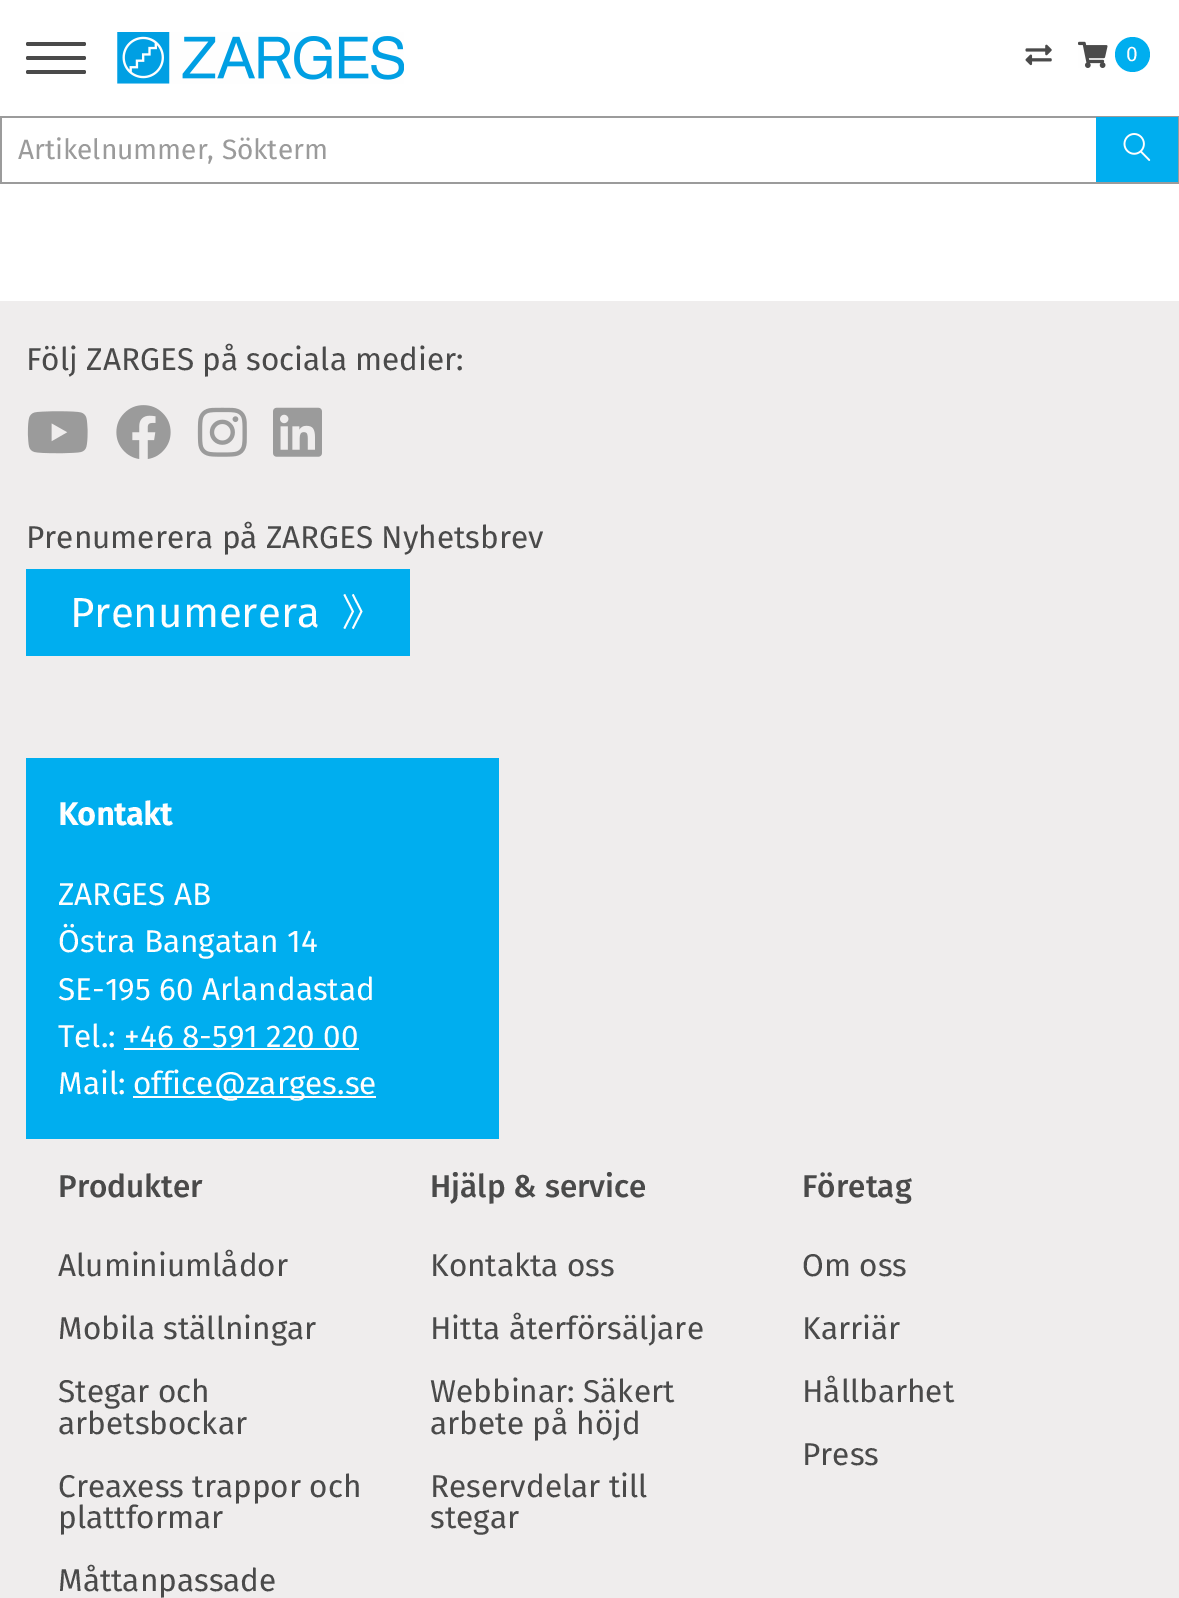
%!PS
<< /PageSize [1179 1598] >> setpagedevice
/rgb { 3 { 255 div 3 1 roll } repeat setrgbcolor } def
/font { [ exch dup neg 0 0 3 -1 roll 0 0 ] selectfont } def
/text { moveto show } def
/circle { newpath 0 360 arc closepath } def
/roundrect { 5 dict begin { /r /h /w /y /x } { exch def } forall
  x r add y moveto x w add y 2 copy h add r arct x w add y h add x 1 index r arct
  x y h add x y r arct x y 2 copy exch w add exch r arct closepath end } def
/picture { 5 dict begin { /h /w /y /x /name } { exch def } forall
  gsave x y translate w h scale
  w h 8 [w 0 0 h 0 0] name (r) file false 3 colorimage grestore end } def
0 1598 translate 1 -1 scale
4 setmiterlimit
255 255 255 rgb
0 0 1179 1598 rectfill
74 74 74 rgb
26 42 60 4 2 roundrect fill
26 56 60 4 2 roundrect fill
26 70 60 4 2 roundrect fill
(img_01.rgb) 117 32 287 52 picture
(img_02.rgb) 1025 44 27 22 picture
(img_03.rgb) 1078 41 30 27 picture
0 174 239 rgb
1132.5 54.5 17.5 circle fill
155 155 155 rgb
0 116 1096 2 rectfill
0 182 1096 2 rectfill
0 116 2 68 rectfill
1096 116 83 1 rectfill
1178 116 1 68 rectfill
1096 182 83 2 rectfill
0 174 239 rgb
1096 117 82 65 rectfill
(img_04.rgb) 1123 133 28 28 picture
239 237 237 rgb
0 301 1179 1297 rectfill
(img_05.rgb) 27 411 61 43 picture
(img_06.rgb) 116 405 55 54 picture
(img_07.rgb) 197 407 50 50 picture
(img_08.rgb) 273 407 49 50 picture
0 174 239 rgb
26 569 384 87 rectfill
254 254 254 rgb
353.5 594 moveto -1.5 1 rlineto 8.5 16.5 rlineto -8.5 16.5 rlineto 1.5 1 rlineto 9 -17.5 rlineto closepath 345 594 moveto -1.5 1 rlineto 8.5 16.5 rlineto -8.5 16.5 rlineto 1.5 1 rlineto 9 -17.5 rlineto closepath fill
0 174 239 rgb
26 758 473 381 rectfill
254 254 254 rgb
124 1048 235 2 rectfill
133 1096 243 2 rectfill
/FiraSans-Regular 21 font
(0) 1126 61 text
/FiraSans-Regular 28 font
155 155 155 rgb
(Artikelnummer, Sökterm) 18 159 text
/FiraSans-Regular 31.5 font
74 74 74 rgb
(Följ ZARGES på sociala medier:) 26 370 text
(Prenumerera på ZARGES Nyhetsbrev) 26 548 text
/FiraSans-Regular 42 font
254 254 254 rgb
(Prenumerera) 70 627 text
/FiraSans-Bold 31.5 font
(Kontakt) 58 825 text
/FiraSans-Regular 31.5 font
(ZARGES AB) 58 905 text
(Östra Bangatan 14) 58 952 text
(SE-195 60 Arlandastad) 58 1000 text
(Tel.: +46 8-591 220 00) 58 1047 text
(Mail:) 58 1094 text
(office@zarges.se) 133 1094 text
/FiraSans-Medium 31.5 font
74 74 74 rgb
(Produkter) 58 1197 text
/FiraSans-Regular 31.5 font
(Aluminiumlådor) 58 1276 text
(Mobila ställningar) 58 1339 text
(Stegar och) 58 1402 text
(arbetsbockar) 58 1434 text
(Creaxess trappor och) 58 1497 text
(plattformar) 58 1528 text
(Måttanpassade) 58 1591 text
/FiraSans-Medium 31.5 font
(Hjälp & service) 430 1197 text
/FiraSans-Regular 31.5 font
(Kontakta oss) 430 1276 text
(Hitta återförsäljare) 430 1339 text
(Webbinar: Säkert) 430 1402 text
(arbete på höjd) 430 1434 text
(Reservdelar till) 430 1497 text
(stegar) 430 1528 text
/FiraSans-Medium 31.5 font
(Företag) 802 1197 text
/FiraSans-Regular 31.5 font
(Om oss) 802 1276 text
(Karriär) 802 1339 text
(Hållbarhet) 802 1402 text
(Press) 802 1465 text
showpage
